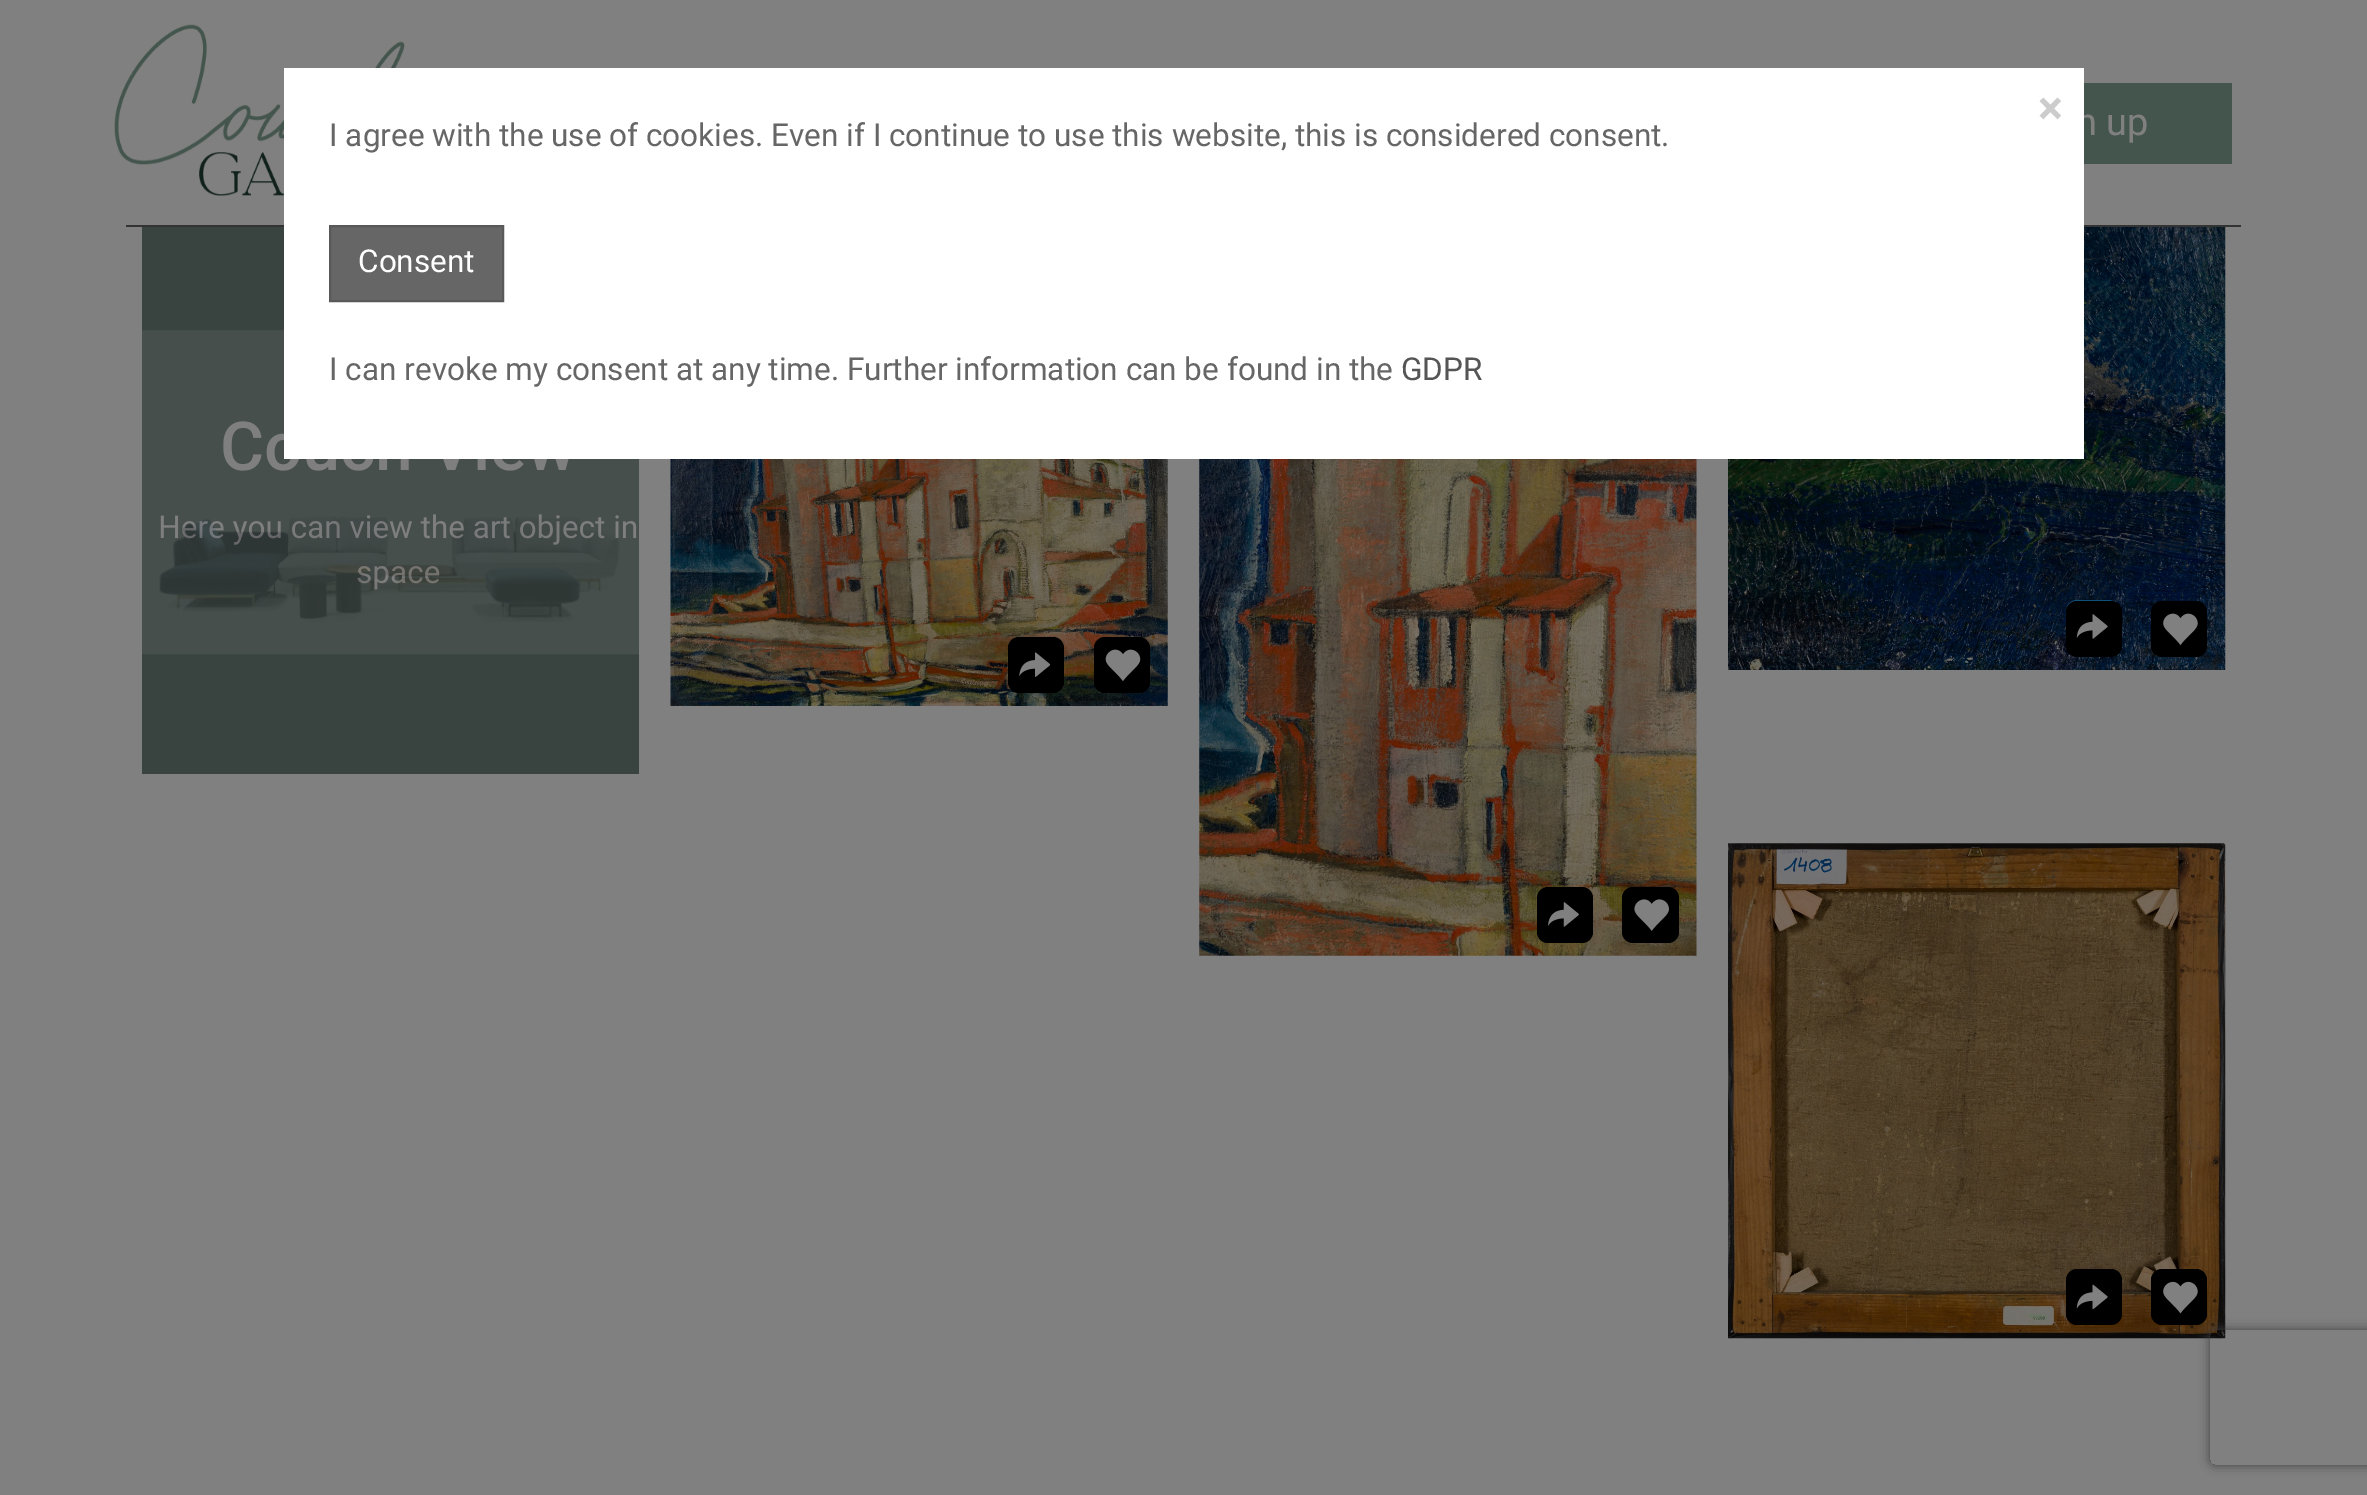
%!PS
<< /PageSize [2367 1495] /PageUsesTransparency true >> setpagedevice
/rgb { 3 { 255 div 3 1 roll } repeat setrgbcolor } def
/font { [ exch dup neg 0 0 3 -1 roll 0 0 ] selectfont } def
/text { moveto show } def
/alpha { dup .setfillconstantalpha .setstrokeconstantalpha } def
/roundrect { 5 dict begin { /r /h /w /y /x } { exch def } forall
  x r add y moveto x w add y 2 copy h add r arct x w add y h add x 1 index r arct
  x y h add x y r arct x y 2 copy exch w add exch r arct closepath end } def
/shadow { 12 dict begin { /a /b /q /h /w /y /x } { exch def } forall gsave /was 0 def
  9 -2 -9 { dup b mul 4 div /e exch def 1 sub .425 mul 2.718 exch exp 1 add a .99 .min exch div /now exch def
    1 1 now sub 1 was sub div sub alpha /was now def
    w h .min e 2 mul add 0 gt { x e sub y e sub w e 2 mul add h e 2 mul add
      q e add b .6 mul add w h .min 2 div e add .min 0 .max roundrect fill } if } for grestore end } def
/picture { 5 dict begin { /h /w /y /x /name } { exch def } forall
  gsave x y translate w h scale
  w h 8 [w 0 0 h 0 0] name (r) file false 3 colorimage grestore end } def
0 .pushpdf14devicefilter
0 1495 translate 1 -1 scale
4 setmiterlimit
128 128 128 rgb
0 0 2367 1495 rectfill
(img_01.rgb) 114 24 291 172 picture
68 85 78 rgb
2084 83 148 81 rectfill
51 51 51 rgb
126 225 2115 2 rectfill
57 67 64 rgb
142 227 497 547 rectfill
(img_03.rgb) 670 459 498 247 picture
0 0 0 rgb
1008 637 56 56 11 roundrect fill
(img_04.rgb) 1019 652 32 25 picture
1094 637 56 56 11 roundrect fill
(img_05.rgb) 1105 649 36 33 picture
(img_06.rgb) 1199 459 498 497 picture
1537 887 56 56 11 roundrect fill
(img_07.rgb) 1548 902 31 25 picture
1622 887 57 56 11 roundrect fill
(img_08.rgb) 1634 899 35 32 picture
(img_09.rgb) 1728 227 498 443 picture
15 81 121 rgb
2108 654 moveto -31 0 rlineto -6 0 -11 -5 -11 -11 rcurveto 0 -31 rlineto 0 -7 5 -12 11 -12 rcurveto 31 0 rlineto 6 0 12 5 12 12 rcurveto 0 31 rlineto 0 6 -6 11 -12 11 rcurveto closepath fill
0 0 0 rgb
2066 601 56 56 11 roundrect fill
(img_10.rgb) 2076 614 32 25 picture
2151 601 56 56 11 roundrect fill
(img_11.rgb) 2163 613 35 33 picture
(img_12.rgb) 1728 843 498 496 picture
2066 1269 56 56 11 roundrect fill
(img_13.rgb) 2076 1284 32 26 picture
2151 1269 56 56 11 roundrect fill
(img_14.rgb) 2163 1281 35 33 picture
gsave
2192 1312 moveto 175 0 rlineto 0 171 rlineto -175 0 rlineto closepath 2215 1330 moveto 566 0 rlineto 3 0 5 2 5 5 rcurveto 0 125 rlineto 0 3 -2 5 -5 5 rcurveto -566 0 rlineto -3 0 -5 -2 -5 -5 rcurveto 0 -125 rlineto 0 -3 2 -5 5 -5 rcurveto closepath eoclip newpath
64 64 64 rgb
2210 1330 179 135 5 5.5 1 shadow
grestore
/Roboto-Regular 38 font
128 128 128 rgb
(n up) 2076 135 text
/Roboto-Medium 68 font
(C) 220 470 text
/Roboto-Regular 31.5 font
(Here you can view the art object in) 158 538 text
(space) 356 583 text
(img_02.rgb) 142 330 497 325 picture
255 255 255 rgb
284 68 1800 391 rectfill
/Roboto-Bold 47 font
204 204 204 rgb
(×) 2038 124 text
/Roboto-Regular 31.5 font
85 85 85 rgb
(GDPR) 1401 380 text
102 102 102 rgb
(I can revoke my consent at any time. Further information can be found in the) 329 380 text
330 226 moveto 173 0 rlineto 0 75 rlineto -173 0 rlineto closepath gsave fill grestore
89 89 89 rgb
2 setlinewidth
stroke
255 255 255 rgb
(Consent) 358 272 text
102 102 102 rgb
(I agree with the use of cookies. Even if I continue to use this website, this is considered consent.) 329 146 text
.poppdf14devicefilter showpage
